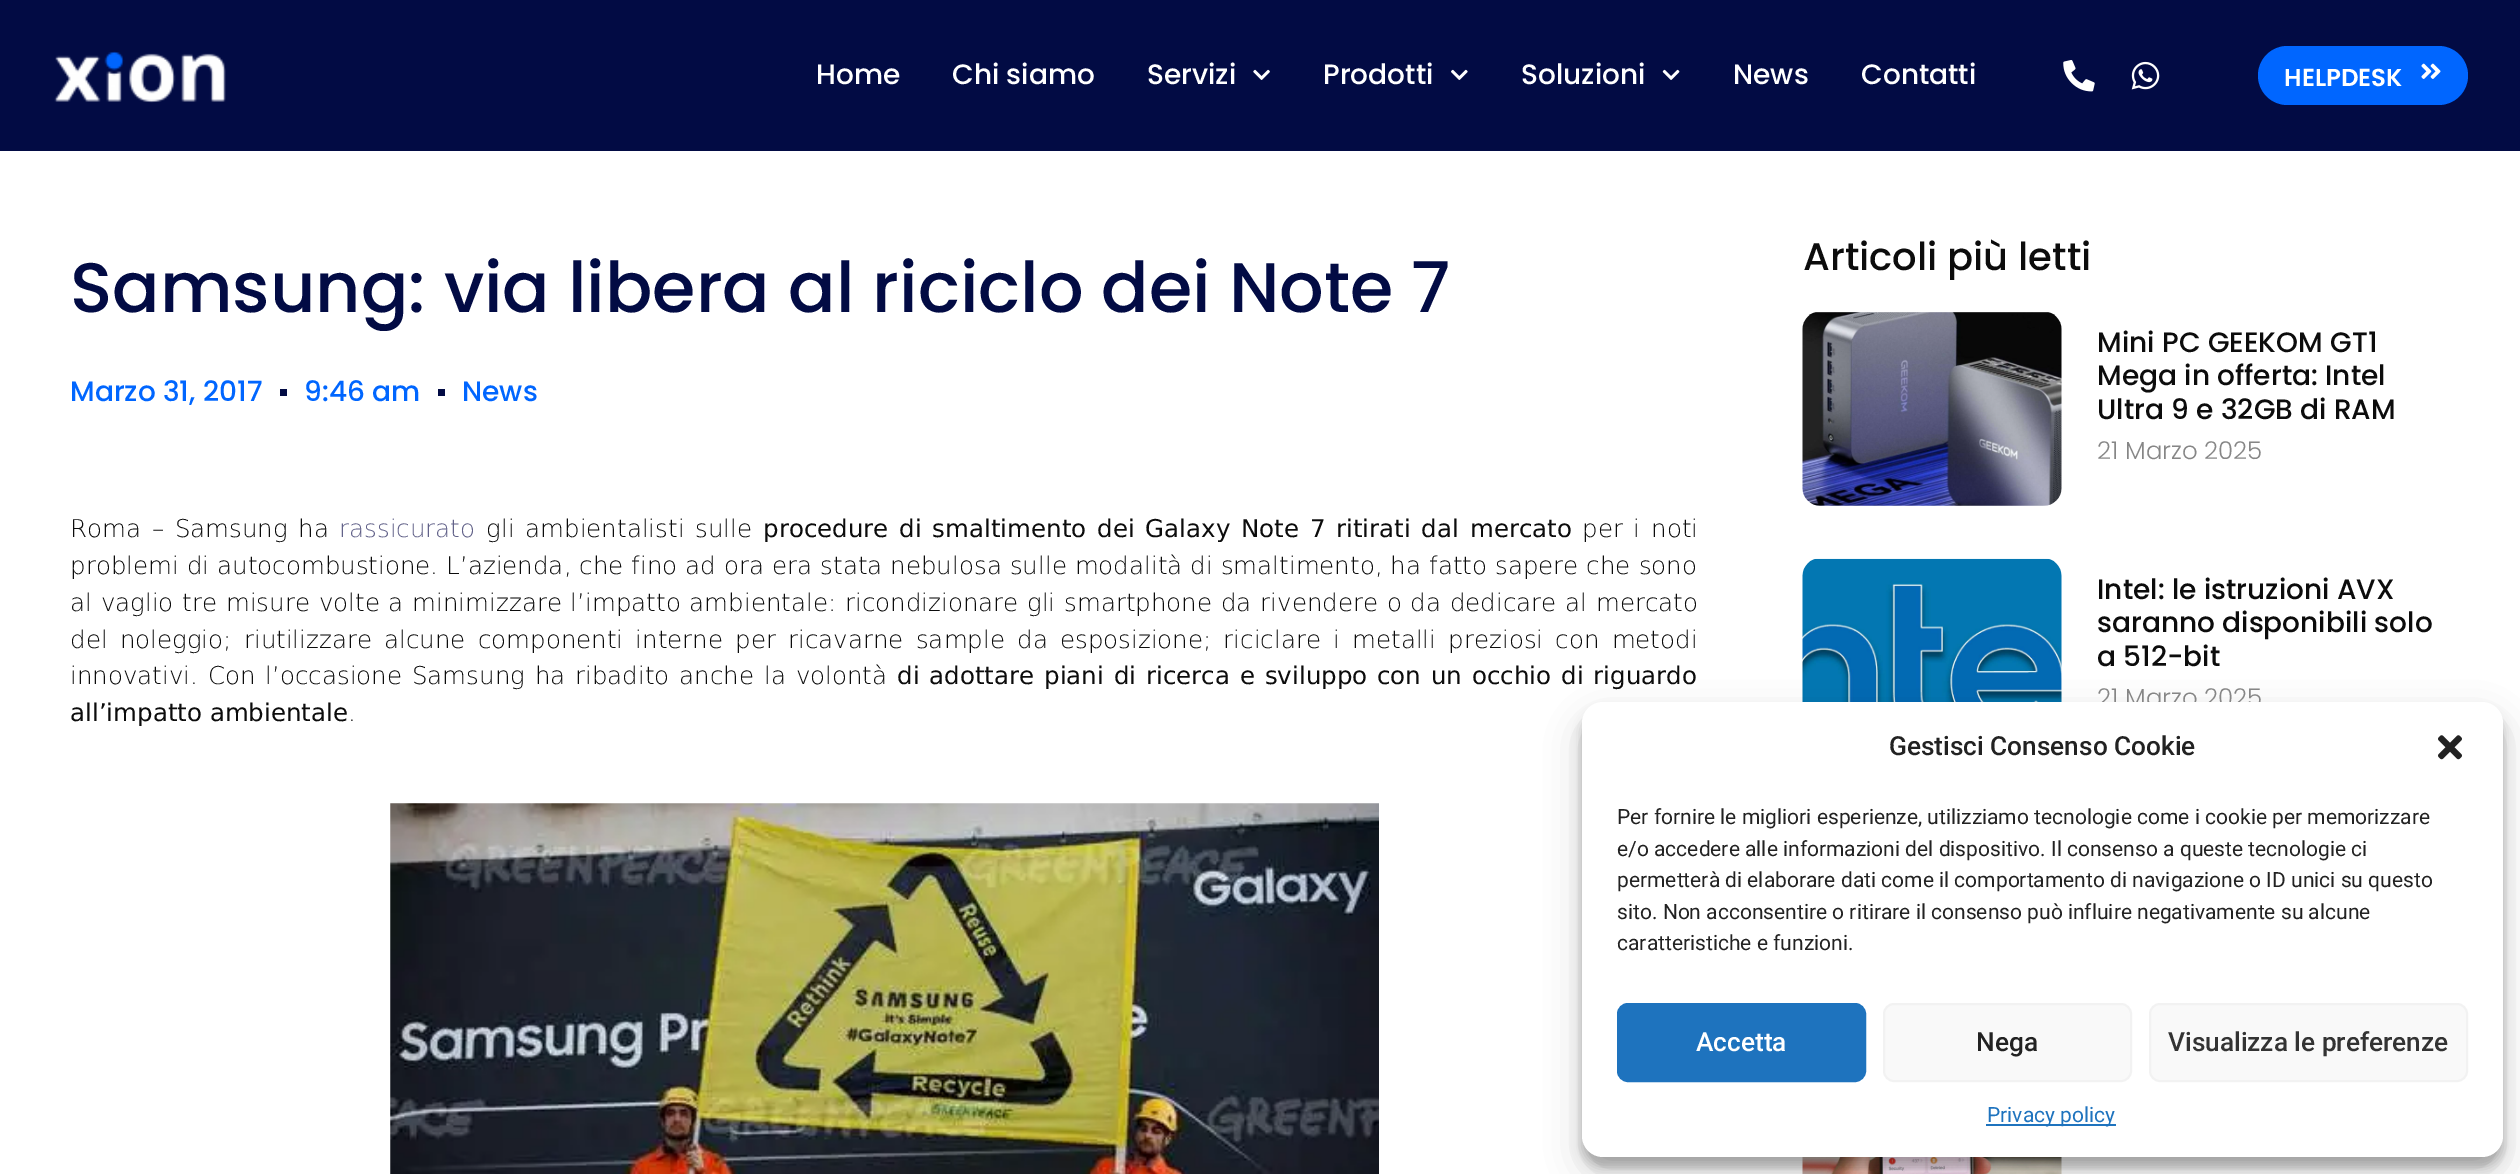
%!PS
<< /PageSize [2520 1174] /PageUsesTransparency true >> setpagedevice
/rgb { 3 { 255 div 3 1 roll } repeat setrgbcolor } def
/font { [ exch dup neg 0 0 3 -1 roll 0 0 ] selectfont } def
/text { moveto show } def
/alpha { dup .setfillconstantalpha .setstrokeconstantalpha } def
/roundrect { 5 dict begin { /r /h /w /y /x } { exch def } forall
  x r add y moveto x w add y 2 copy h add r arct x w add y h add x 1 index r arct
  x y h add x y r arct x y 2 copy exch w add exch r arct closepath end } def
/shadow { 12 dict begin { /a /b /q /h /w /y /x } { exch def } forall gsave /was 0 def
  9 -2 -9 { dup b mul 4 div /e exch def 1 sub .425 mul 2.718 exch exp 1 add a .99 .min exch div /now exch def
    1 1 now sub 1 was sub div sub alpha /was now def
    w h .min e 2 mul add 0 gt { x e sub y e sub w e 2 mul add h e 2 mul add
      q e add b .6 mul add w h .min 2 div e add .min 0 .max roundrect fill } if } for grestore end } def
/picture { 5 dict begin { /h /w /y /x /name } { exch def } forall
  gsave x y translate w h scale
  w h 8 [w 0 0 h 0 0] name (r) file false 3 colorimage grestore end } def
0 .pushpdf14devicefilter
0 1174 translate 1 -1 scale
4 setmiterlimit
255 255 255 rgb
0 0 2520 1174 rectfill
2 11 68 rgb
0 0 2520 151 rectfill
(img_01.rgb) 54 51 172 52 picture
(img_02.rgb) 1253 69 17 11 picture
(img_03.rgb) 1451 69 17 11 picture
(img_04.rgb) 1662 69 18 11 picture
(img_05.rgb) 2063 60 32 32 picture
(img_06.rgb) 2131 61 29 29 picture
0 102 255 rgb
2258 46 210 59 29.5 roundrect fill
(img_07.rgb) 2421 63 20 16 picture
2 11 68 rgb
280 389 7 7 rectfill
438 389 7 7 rectfill
(img_08.rgb) 390 803 989 371 picture
(img_09.rgb) 1802 312 260 194 picture
(img_10.rgb) 1802 558 260 144 picture
(img_11.rgb) 1802 1157 260 17 picture
0 0 0 rgb
1582 712 921 455 21 5 0.23 shadow
1582 719 921 455 21 17.5 0.19 shadow
/Poppins-Medium 28 font
255 255 255 rgb
(Home) 816 84 text
(Chi siamo) 952 84 text
(Servizi) 1147 84 text
(Prodotti) 1323 84 text
(Soluzioni) 1521 84 text
(News) 1733 84 text
(Contatti) 1861 84 text
/Poppins-SemiBold 24.5 font
(HELPDESK) 2284 86 text
/Poppins-Medium 70 font
2 11 68 rgb
(Samsung: via libera al riciclo dei Note 7) 70 312 text
/Poppins-Medium 28 font
0 102 255 rgb
(Marzo 31, 2017) 70 401 text
(9:46 am) 304 401 text
(News) 462 401 text
/DejaVuSans-ExtraLight 24.5 font
12 12 12 rgb
70 537 moveto 3 0 32 (Roma – Samsung ha) widthshow
98 98 137 rgb
(rassicurato) 339 537 text
12 12 12 rgb
486 537 moveto 3 0 32 (gli ambientalisti sulle) widthshow
/DejaVuSans-Regular 24.5 font
763 537 moveto 3 0 32 (procedure di smaltimento dei Galaxy Note 7 ritirati dal mercato) widthshow
/DejaVuSans-ExtraLight 24.5 font
1582 537 moveto 3 0 32 (per i noti) widthshow
70 574 moveto 0.25 0 32 (problemi di autocombustione. L’azienda, che fino ad ora era stata nebulosa sulle modalità di smaltimento, ha fatto sapere che sono) widthshow
70 611 moveto 1 0 32 (al vaglio tre misure volte a minimizzare l’impatto ambientale: ricondizionare gli smartphone da rivendere o da dedicare al mercato) widthshow
70 648 moveto 4.4 0 32 (del noleggio; riutilizzare alcune componenti interne per ricavarne sample da esposizione; riciclare i metalli preziosi con metodi) widthshow
70 684 moveto 2.1 0 32 (innovativi. Con l’occasione Samsung ha ribadito anche la volontà) widthshow
/DejaVuSans-Regular 24.5 font
897 684 moveto 2.1 0 32 (di adottare piani di ricerca e sviluppo con un occhio di riguardo) widthshow
(all’impatto ambientale) 70 721 text
/DejaVuSans-ExtraLight 24.5 font
(.) 348 721 text
/Poppins-Medium 38.5 font
(Articoli più letti) 1803 270 text
/Poppins-Medium 28 font
(Mini PC GEEKOM GT1) 2097 352 text
(Mega in offerta: Intel) 2097 385 text
(Ultra 9 e 32GB di RAM) 2097 419 text
/Poppins-Light 24.5 font
134 134 134 rgb
(21 Marzo 2025) 2097 459 text
/Poppins-Medium 28 font
12 12 12 rgb
(Intel: le istruzioni AVX) 2097 599 text
(saranno disponibili solo) 2097 632 text
(a 512-bit) 2097 666 text
/Poppins-Light 24.5 font
134 134 134 rgb
(21 Marzo 2025) 2097 706 text
255 255 255 rgb
1582 702 921 455 21 roundrect fill
/Roboto-Medium 26.25 font
34 34 34 rgb
(Gestisci Consenso Cookie) 1889 755 text
(img_12.rgb) 2438 735 24 25 picture
/Roboto-Regular 21 font
(Per fornire le migliori esperienze, utilizziamo tecnologie come i cookie per memorizzare) 1617 824 text
(e/o accedere alle informazioni del dispositivo. Il consenso a queste tecnologie ci) 1617 856 text
(permetterà di elaborare dati come il comportamento di navigazione o ID unici su questo) 1617 887 text
(sito. Non acconsentire o ritirare il consenso può influire negativamente su alcune) 1617 919 text
(caratteristiche e funzioni.) 1617 950 text
30 115 190 rgb
1618 1004 247 77 10 roundrect gsave fill grestore
2 setlinewidth
stroke
/Roboto-Medium 26.25 font
255 255 255 rgb
(Accetta) 1696 1051 text
249 249 249 rgb
1884 1004 247 77 10 roundrect gsave fill grestore
242 242 242 rgb
stroke
34 34 34 rgb
(Nega) 1976 1051 text
249 249 249 rgb
2150 1004 317 77 10 roundrect gsave fill grestore
242 242 242 rgb
stroke
51 51 51 rgb
(Visualizza le preferenze) 2168 1051 text
30 115 190 rgb
1986 1124 130 2 rectfill
/Roboto-Regular 21 font
(Privacy policy) 1987 1122 text
.poppdf14devicefilter showpage
